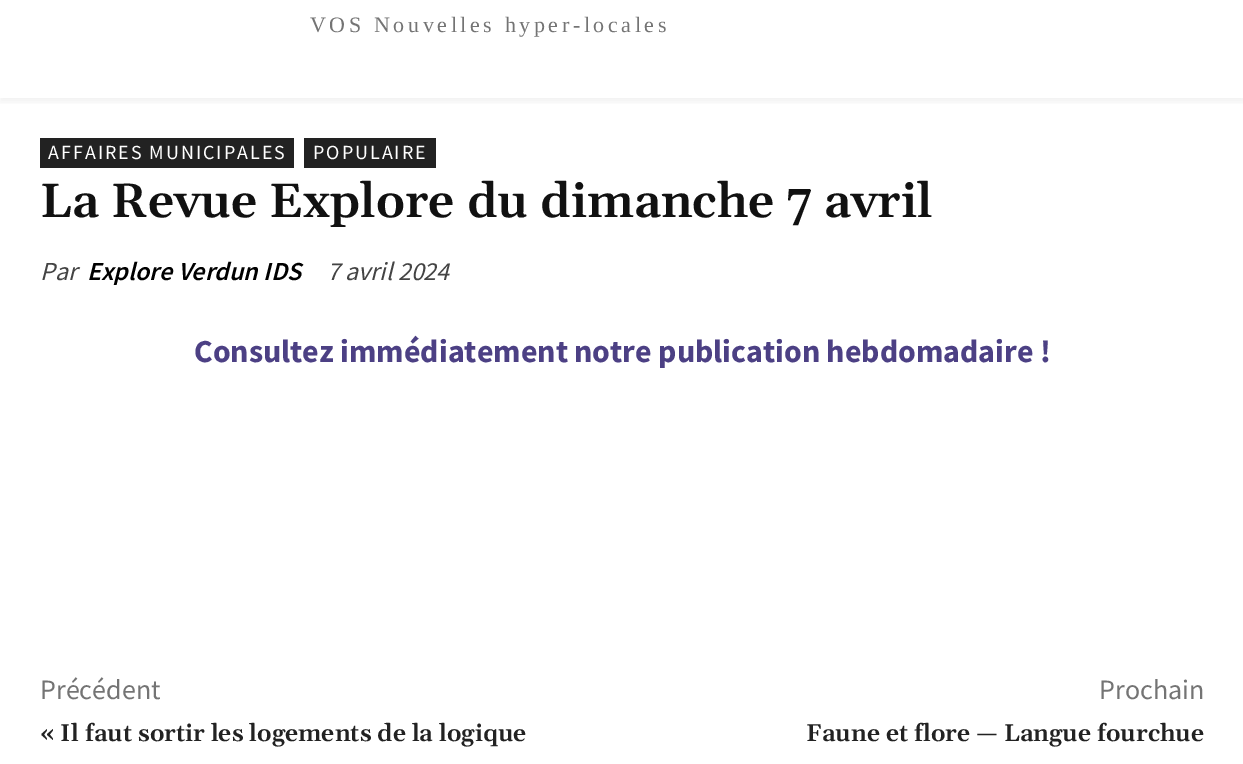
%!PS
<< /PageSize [1243 764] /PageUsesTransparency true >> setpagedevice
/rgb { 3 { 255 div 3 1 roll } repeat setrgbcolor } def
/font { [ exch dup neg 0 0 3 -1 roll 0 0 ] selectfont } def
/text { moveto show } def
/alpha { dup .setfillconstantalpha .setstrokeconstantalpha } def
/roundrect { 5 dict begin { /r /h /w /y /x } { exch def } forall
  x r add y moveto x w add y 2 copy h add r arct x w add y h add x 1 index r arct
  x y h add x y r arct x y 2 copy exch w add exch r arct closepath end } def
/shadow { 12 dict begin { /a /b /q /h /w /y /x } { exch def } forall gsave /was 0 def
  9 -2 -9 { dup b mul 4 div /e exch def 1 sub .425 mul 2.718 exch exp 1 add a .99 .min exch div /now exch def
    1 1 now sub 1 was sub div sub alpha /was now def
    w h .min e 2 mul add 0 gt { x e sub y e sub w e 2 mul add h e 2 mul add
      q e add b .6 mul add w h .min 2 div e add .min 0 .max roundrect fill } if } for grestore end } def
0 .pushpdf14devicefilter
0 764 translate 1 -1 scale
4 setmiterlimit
255 255 255 rgb
0 0 1243 764 rectfill
gsave
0 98 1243 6 rectclip
0 0 0 rgb
0 4 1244 98 0 4 0.06 shadow
grestore
34 34 34 rgb
40 138 254 30 rectfill
304 138 132 30 rectfill
/LiberationSerif-Regular 22 font
116 116 116 rgb
310 32 moveto 3.6 0 (VOS Nouvelles hyper-locales) ashow
/SourceSansPro-Regular 20 font
255 255 255 rgb
48 159 moveto 2 0 (AFFAIRES MUNICIPALES) ashow
313 159 moveto 2 0 (POPULAIRE) ashow
/Gelasio-SemiBold 48 font
17 17 17 rgb
(La Revue Explore du dimanche 7 avril) 40 217 text
/SourceSansPro-Italic 26 font
68 68 68 rgb
(Par) 40 280 text
/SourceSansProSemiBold-SemiBoldItalic 26 font
0 0 0 rgb
(Explore Verdun IDS) 87 280 text
/SourceSansPro-Italic 26 font
68 68 68 rgb
(7 avril 2024) 327 280 text
/SourceSansPro-Bold 32 font
76 64 132 rgb
(Consultez immédiatement notre publication hebdomadaire !) 194 362 text
/SourceSansPro-Regular 28 font
116 116 116 rgb
(Précédent) 40 699 text
/Gelasio-SemiBold 24 font
34 34 34 rgb
(« Il faut sortir les logements de la logique) 40 741 text
/SourceSansPro-Regular 28 font
116 116 116 rgb
(Prochain) 1099 699 text
/Gelasio-SemiBold 24 font
34 34 34 rgb
(Faune et flore — Langue fourchue) 806 741 text
.poppdf14devicefilter showpage
